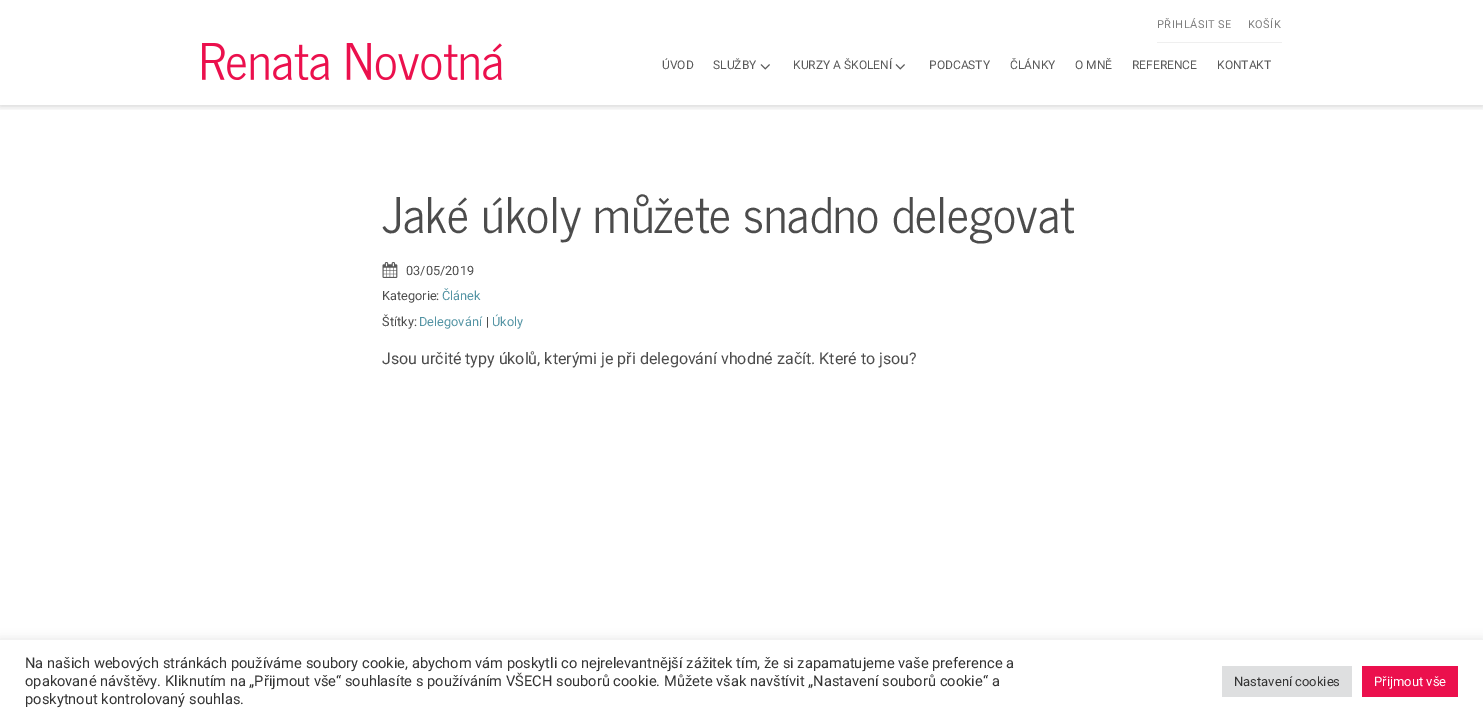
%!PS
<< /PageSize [1483 722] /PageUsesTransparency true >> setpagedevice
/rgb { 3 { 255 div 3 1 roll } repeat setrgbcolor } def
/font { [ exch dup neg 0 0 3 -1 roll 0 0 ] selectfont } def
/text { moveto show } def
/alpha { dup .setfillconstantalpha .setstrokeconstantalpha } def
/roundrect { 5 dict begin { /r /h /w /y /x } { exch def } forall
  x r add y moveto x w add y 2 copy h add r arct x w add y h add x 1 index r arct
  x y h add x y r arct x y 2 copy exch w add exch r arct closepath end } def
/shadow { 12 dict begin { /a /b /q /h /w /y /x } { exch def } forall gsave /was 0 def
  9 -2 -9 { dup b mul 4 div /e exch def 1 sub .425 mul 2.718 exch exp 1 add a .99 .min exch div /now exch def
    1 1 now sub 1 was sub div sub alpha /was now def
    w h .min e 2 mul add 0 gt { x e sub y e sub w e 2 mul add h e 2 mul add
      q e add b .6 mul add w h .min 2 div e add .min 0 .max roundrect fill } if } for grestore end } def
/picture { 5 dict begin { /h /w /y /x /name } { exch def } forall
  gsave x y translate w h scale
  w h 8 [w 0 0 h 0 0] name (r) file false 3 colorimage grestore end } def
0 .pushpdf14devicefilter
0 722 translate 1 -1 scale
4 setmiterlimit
255 255 255 rgb
0 0 1483 722 rectfill
gsave
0 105 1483 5 rectclip
0 0 0 rgb
0 1 1483 105 0 3.5 0.19 shadow
grestore
239 239 239 rgb
1157 42 125 1 rectfill
(img_01.rgb) 202 43 300 37 picture
(img_02.rgb) 760 64 10 6 picture
(img_02.rgb) 895 64 10 6 picture
(img_03.rgb) 382 262 16 16 picture
172 171 171 rgb
0 639 1483 82 0 5 0.3 shadow
255 255 255 rgb
0 640 1483 82 rectfill
222 223 224 rgb
1222 666 130 31 rectfill
235 16 77 rgb
1362 666 96 31 rectfill
/Roboto-Regular 11 font
126 126 126 rgb
1157 28 moveto 0.5 0 (PŘIHLÁSIT SE) ashow
1248 28 moveto 0.5 0 (KOŠÍK) ashow
/Roboto-Regular 12 font
89 89 89 rgb
(ÚVOD) 662 69 text
(SLUŽBY) 713 69 text
(KURZY A ŠKOLENÍ) 793 69 text
(PODCASTY) 929 69 text
(ČLÁNKY) 1010 69 text
(O MNĚ) 1075 69 text
(REFERENCE) 1132 69 text
(KONTAKT) 1217 69 text
/NewsCycle-Regular 48.8 font
76 76 76 rgb
(Jaké úkoly můžete snadno delegovat) 382 233 text
/Roboto-Regular 12.75 font
(03/05/2019) 406 275 text
(Kategorie:) 382 300 text
84 148 164 rgb
(Článek) 442 300 text
76 76 76 rgb
(Štítky:) 382 326 text
84 148 164 rgb
(Delegování) 419 326 text
76 76 76 rgb
(|) 486 326 text
84 148 164 rgb
(Úkoly) 492 326 text
/Roboto-Regular 16 font
76 76 76 rgb
(Jsou určité typy úkolů, kterými je při delegování vhodné začít. Které to jsou?) 382 364 text
/Roboto-Regular 14.67 font
51 51 51 rgb
(Na našich webových stránkách používáme soubory cookie, abychom vám poskytli co nejrelevantnější zážitek tím, že si zapamatujeme vaše preference a) 25 668 text
(opakované návštěvy. Kliknutím na „Přijmout vše“ souhlasíte s používáním VŠECH souborů cookie. Můžete však navštívit „Nastavení souborů cookie“ a) 25 686 text
(poskytnout kontrolovaný souhlas.) 25 704 text
/Roboto-Regular 13 font
(Nastavení cookies) 1234 686 text
255 255 255 rgb
(Přijmout vše) 1374 686 text
.poppdf14devicefilter showpage
